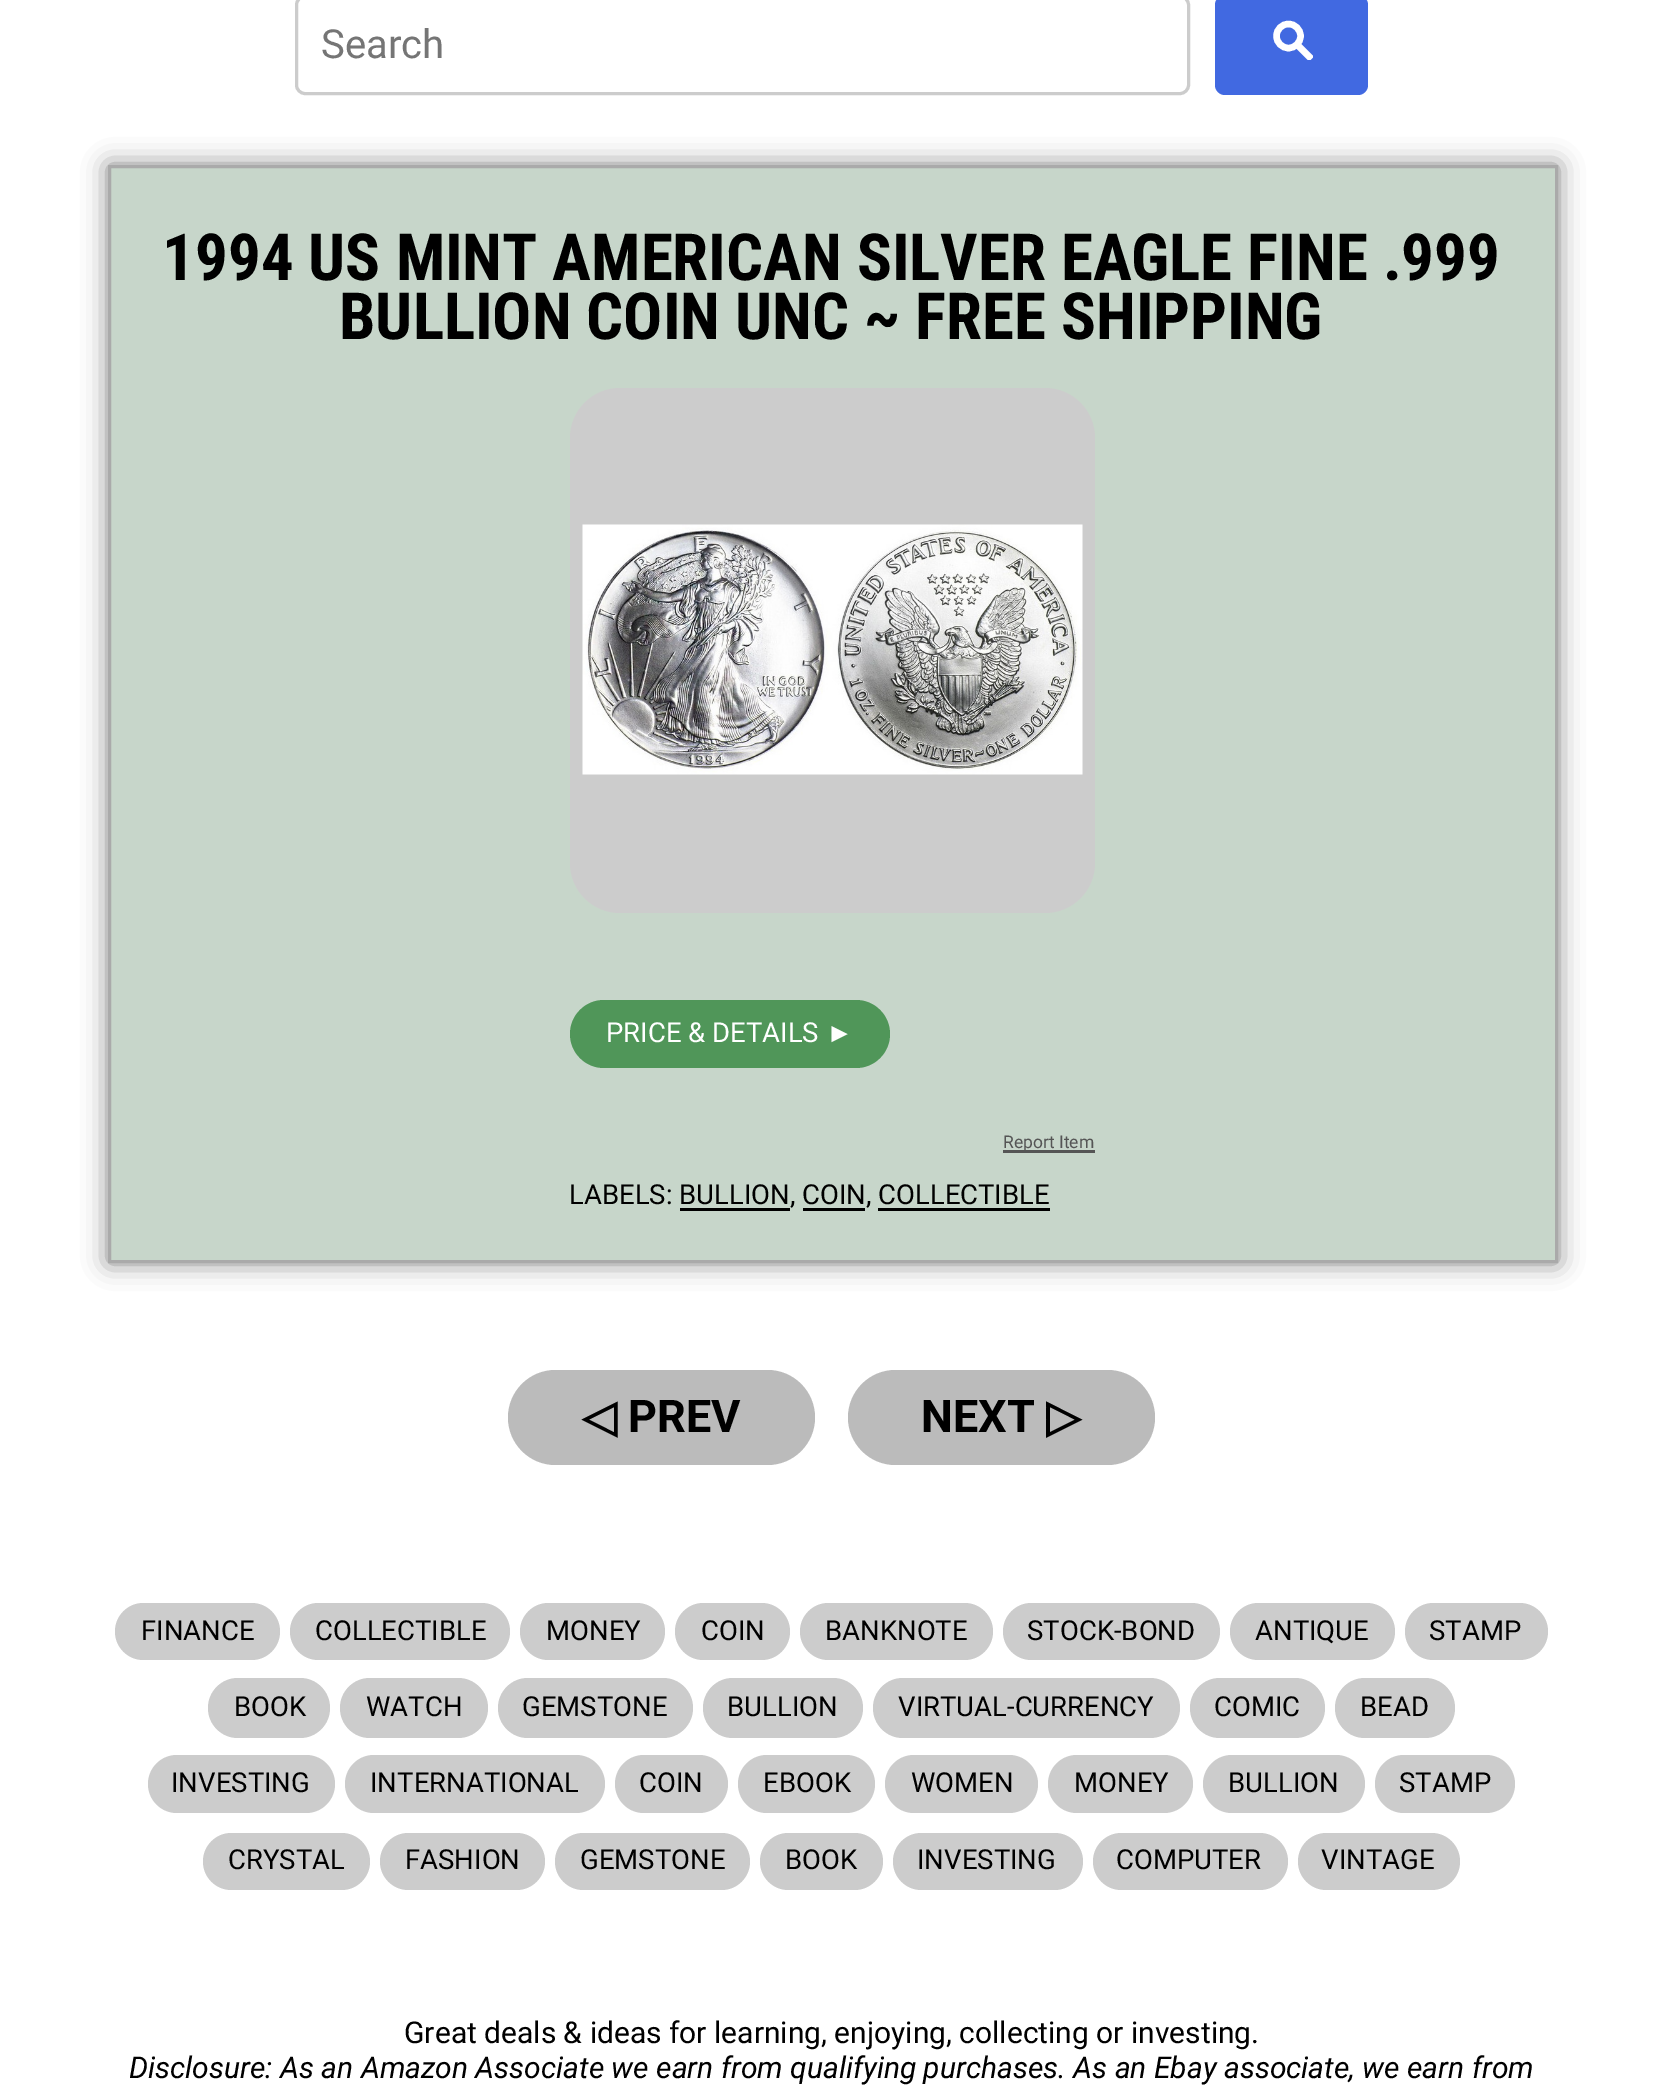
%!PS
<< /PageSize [1661 2095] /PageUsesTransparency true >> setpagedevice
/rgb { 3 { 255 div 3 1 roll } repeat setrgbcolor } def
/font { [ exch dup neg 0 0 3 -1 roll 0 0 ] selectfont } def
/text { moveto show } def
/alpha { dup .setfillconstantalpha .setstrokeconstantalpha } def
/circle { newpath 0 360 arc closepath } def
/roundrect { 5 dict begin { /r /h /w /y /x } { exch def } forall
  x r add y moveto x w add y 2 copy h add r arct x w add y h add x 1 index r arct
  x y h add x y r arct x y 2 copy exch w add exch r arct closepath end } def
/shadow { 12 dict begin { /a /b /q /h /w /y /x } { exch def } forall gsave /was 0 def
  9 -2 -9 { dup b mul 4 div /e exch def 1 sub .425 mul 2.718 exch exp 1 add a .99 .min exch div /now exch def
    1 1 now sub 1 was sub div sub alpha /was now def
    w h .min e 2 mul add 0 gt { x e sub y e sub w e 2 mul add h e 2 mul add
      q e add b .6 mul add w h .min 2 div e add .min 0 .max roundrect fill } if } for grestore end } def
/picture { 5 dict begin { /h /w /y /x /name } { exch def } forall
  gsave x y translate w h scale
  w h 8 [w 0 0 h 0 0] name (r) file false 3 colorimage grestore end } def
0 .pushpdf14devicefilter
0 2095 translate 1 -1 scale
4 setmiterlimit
255 255 255 rgb
0 0 1661 2095 rectfill
204 204 204 rgb
3 setlinewidth
296.5 -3.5 892 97 8.5 roundrect stroke
65 105 225 rgb
1215 -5 153 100 10 roundrect fill
255 255 255 rgb
6.4 setlinewidth
1288.5 36 12 circle stroke
gsave
1273 20 40 40 rectclip
1296.5 44 moveto 15 15 rlineto stroke
grestore
128 128 128 rgb
108 165 1450 1098 0 12.5 1 shadow
199 214 202 rgb
109.5 166.5 moveto 1447 0 rlineto 0 1095 rlineto -1447 0 rlineto closepath gsave fill grestore
170 170 170 rgb
3 setlinewidth
stroke
204 204 204 rgb
570 388 525 525 50 roundrect fill
(img_01.rgb) 582 524 501 251 picture
80 150 89 rgb
570 1000 320 68 34 roundrect fill
85 85 85 rgb
1003 1150 92 3 rectfill
0 0 0 rgb
680 1208 110 3 rectfill
803 1208 62 3 rectfill
878 1208 172 3 rectfill
187 187 187 rgb
508 1370 307 95 47.5 roundrect fill
848 1370 307 95 47.5 roundrect fill
204 204 204 rgb
115 1603 165 57 28.5 roundrect fill
290 1603 220 57 28.5 roundrect fill
520 1603 145 57 28.5 roundrect fill
675 1603 115 57 28.5 roundrect fill
800 1603 193 57 28.5 roundrect fill
1003 1603 217 57 28.5 roundrect fill
1230 1603 165 57 28.5 roundrect fill
1405 1603 143 57 28.5 roundrect fill
208 1678 122 60 30 roundrect fill
340 1678 148 60 30 roundrect fill
498 1678 195 60 30 roundrect fill
703 1678 160 60 30 roundrect fill
873 1678 307 60 30 roundrect fill
1190 1678 135 60 30 roundrect fill
1335 1678 120 60 30 roundrect fill
148 1755 187 58 29 roundrect fill
345 1755 260 58 29 roundrect fill
615 1755 113 58 29 roundrect fill
738 1755 137 58 29 roundrect fill
885 1755 153 58 29 roundrect fill
1048 1755 145 58 29 roundrect fill
1203 1755 162 58 29 roundrect fill
1375 1755 140 58 29 roundrect fill
203 1833 167 57 28.5 roundrect fill
380 1833 165 57 28.5 roundrect fill
555 1833 195 57 28.5 roundrect fill
760 1833 123 57 28.5 roundrect fill
893 1833 190 57 28.5 roundrect fill
1093 1833 195 57 28.5 roundrect fill
1298 1833 162 57 28.5 roundrect fill
/Roboto-Regular 40 font
117 117 117 rgb
(Search) 321 58 text
/RobotoCondensed-Bold 65 font
0 0 0 rgb
(1994 US MINT AMERICAN SILVER EAGLE FINE .999) 162 280 text
(BULLION COIN UNC ~ FREE SHIPPING) 339 339 text
/Roboto-Regular 27.5 font
255 255 255 rgb
(PRICE & DETAILS) 606 1042 text
/LiberationSans-Regular 27.5 font
(►) 826 1042 text
/Roboto-Regular 17.5 font
85 85 85 rgb
(Report Item) 1003 1148 text
/Roboto-Regular 27.5 font
0 0 0 rgb
(LABELS: BULLION, COIN, COLLECTIBLE) 569 1204 text
/DejaVuSans-Bold 45 font
(◁) 582 1432 text
/Roboto-Bold 45 font
(PREV) 628 1432 text
(NEXT) 921 1432 text
/DejaVuSans-Bold 45 font
(▷) 1046 1432 text
/Roboto-Regular 27.5 font
(FINANCE) 141 1640 text
(COLLECTIBLE) 315 1640 text
(MONEY) 546 1640 text
(COIN) 701 1640 text
(BANKNOTE) 825 1640 text
(STOCK-BOND) 1027 1640 text
(ANTIQUE) 1255 1640 text
(STAMP) 1429 1640 text
(BOOK) 234 1716 text
(WATCH) 366 1716 text
(GEMSTONE) 522 1716 text
(BULLION) 727 1716 text
(VIRTUAL-CURRENCY) 898 1716 text
(COMIC) 1214 1716 text
(BEAD) 1360 1716 text
(INVESTING) 171 1792 text
(INTERNATIONAL) 370 1792 text
(COIN) 639 1792 text
(EBOOK) 763 1792 text
(WOMEN) 911 1792 text
(MONEY) 1074 1792 text
(BULLION) 1228 1792 text
(STAMP) 1399 1792 text
(CRYSTAL) 228 1869 text
(FASHION) 405 1869 text
(GEMSTONE) 580 1869 text
(BOOK) 785 1869 text
(INVESTING) 917 1869 text
(COMPUTER) 1116 1869 text
(VINTAGE) 1321 1869 text
/Roboto-Regular 30 font
(Great deals & ideas for learning, enjoying, collecting or investing.) 404 2043 text
/Roboto-Italic 30 font
(Disclosure: As an Amazon Associate we earn from qualifying purchases. As an Ebay associate, we earn from) 129 2078 text
.poppdf14devicefilter showpage
